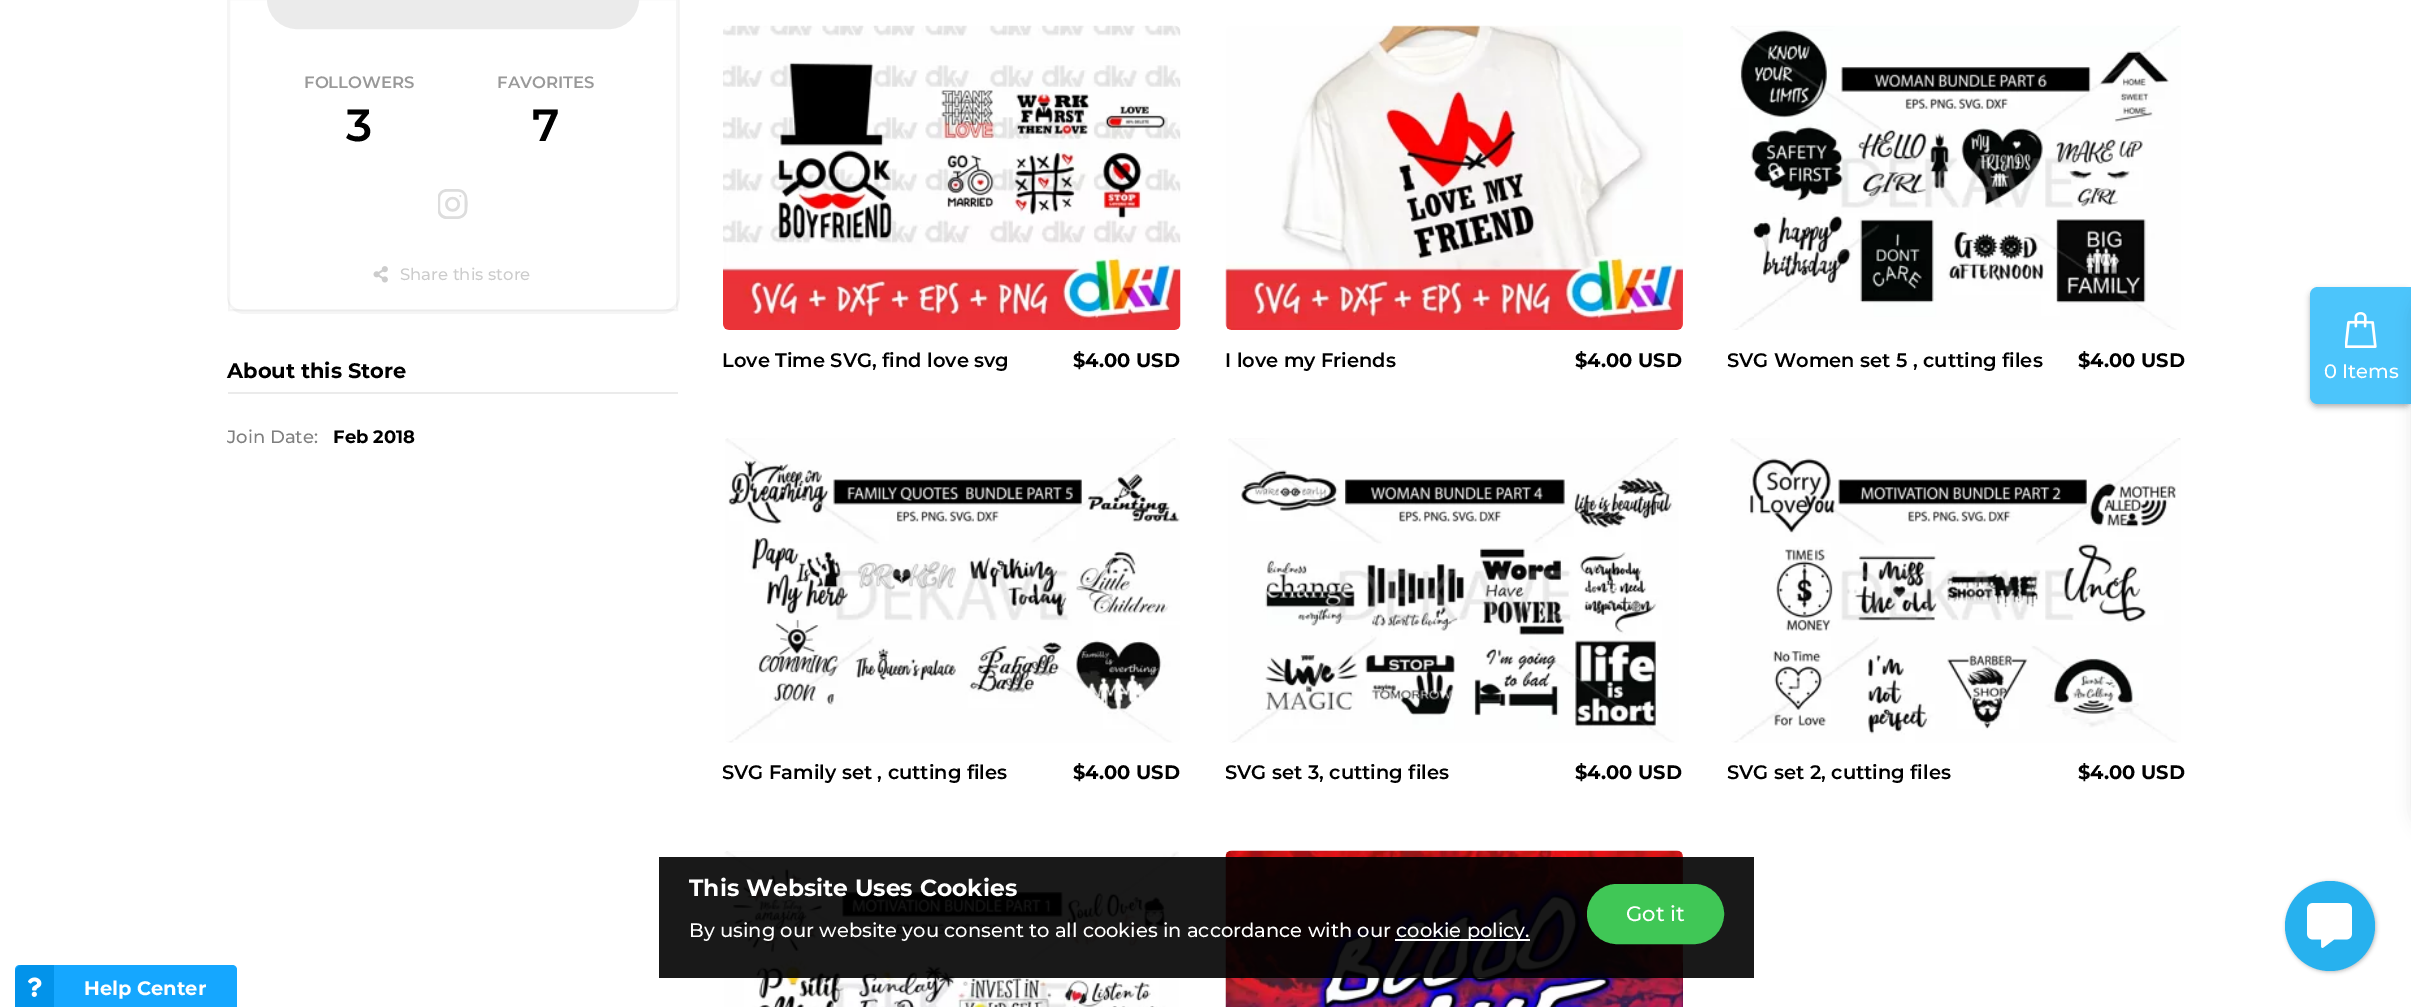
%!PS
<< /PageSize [2411 1007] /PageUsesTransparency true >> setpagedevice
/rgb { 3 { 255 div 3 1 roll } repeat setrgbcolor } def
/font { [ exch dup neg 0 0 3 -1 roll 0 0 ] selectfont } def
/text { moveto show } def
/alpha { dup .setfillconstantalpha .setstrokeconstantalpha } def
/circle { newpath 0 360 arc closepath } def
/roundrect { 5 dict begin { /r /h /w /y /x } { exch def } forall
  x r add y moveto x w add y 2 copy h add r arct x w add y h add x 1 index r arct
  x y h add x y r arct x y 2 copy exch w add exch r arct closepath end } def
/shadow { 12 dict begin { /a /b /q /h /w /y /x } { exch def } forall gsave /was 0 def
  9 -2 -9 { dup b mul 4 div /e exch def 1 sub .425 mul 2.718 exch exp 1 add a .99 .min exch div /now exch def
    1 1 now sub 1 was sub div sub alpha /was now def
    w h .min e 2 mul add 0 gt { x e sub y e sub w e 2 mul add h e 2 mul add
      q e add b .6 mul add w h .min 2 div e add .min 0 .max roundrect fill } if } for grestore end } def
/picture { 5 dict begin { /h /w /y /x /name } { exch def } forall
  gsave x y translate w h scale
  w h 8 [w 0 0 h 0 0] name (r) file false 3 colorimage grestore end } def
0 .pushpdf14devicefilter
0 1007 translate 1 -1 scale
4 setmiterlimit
255 255 255 rgb
0 0 2411 1007 rectfill
245 245 245 rgb
680 -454 moveto 0 -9 -8 -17 -17 -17 rcurveto 8 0 15 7 15 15 rcurveto 0 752 rlineto 0 8 -7 14 -15 14 rcurveto -420 0 rlineto -8 0 -15 -6 -15 -14 rcurveto 0 -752 rlineto 0 -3 1 -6 3 -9 rcurveto -3 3 -4 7 -4 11 rcurveto 0 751 rlineto 0 9 8 17 17 17 rcurveto 419 0 rlineto 9 0 17 -8 17 -17 rcurveto closepath fill
0.04 alpha
0 0 0 rgb
2 setlinewidth
229 -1 448 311 rectstroke
1 alpha
235 235 235 rgb
268 -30 370 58 29 roundrect gsave fill grestore
stroke
(img_01.rgb) 438 189 30 30 picture
(img_02.rgb) 373 266 15 17 picture
228 392 450 2 rectfill
(img_03.rgb) 723 25 458 305 picture
(img_04.rgb) 1225 25 458 305 picture
(img_05.rgb) 1730 25 451 305 picture
(img_06.rgb) 725 438 455 305 picture
(img_07.rgb) 1228 438 451 305 picture
(img_08.rgb) 1730 438 451 305 picture
(img_09.rgb) 724 851 455 156 picture
(img_10.rgb) 1225 850 458 157 picture
0 0 0 rgb
2310 290 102 117 8 3 0.3 shadow
76 197 251 rgb
2318 287 moveto 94 0 rlineto 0 117 rlineto -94 0 rlineto -4.5 0 -8 -3.5 -8 -8 rcurveto 0 -101 rlineto 0 -4.5 3.5 -8 8 -8 rcurveto closepath fill
(img_11.rgb) 2345 312 32 36 picture
0 0 0 rgb
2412 291 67 546 45 7.5 0.1 shadow
0.9 alpha
659 857 1095 121 rectfill
1 alpha
255 255 255 rgb
1395 939 135 2 rectfill
64 199 86 rgb
1588 885 135 58 29 roundrect gsave fill grestore
stroke
0 0 0 rgb
2286 882 90 90 45 2 0.26 shadow
39 177 238 rgb
2330 926 45 circle fill
(img_12.rgb) 2307 903 45 45 picture
21 167 255 rgb
20 965 moveto 212 0 rlineto 3 0 5 2 5 5 rcurveto 0 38 rlineto -222 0 rlineto 0 -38 rlineto 0 -3 2 -5 5 -5 rcurveto closepath fill
2 147 234 rgb
23 965 moveto 31 0 rlineto 0 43 rlineto -39 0 rlineto 0 -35 rlineto 0 -4.5 3.5 -8 8 -8 rcurveto closepath fill
(img_13.rgb) 28 977 14 20 picture
/Montserrat-SemiBold 16.5 font
153 153 153 rgb
(FOLLOWERS) 304 88 text
/Montserrat-SemiBold 45 font
0 0 0 rgb
(3) 346 141 text
/Montserrat-SemiBold 16.5 font
153 153 153 rgb
(FAVORITES) 497 88 text
/Montserrat-SemiBold 45 font
0 0 0 rgb
(7) 532 141 text
/Montserrat-Medium 16.5 font
204 204 204 rgb
(Share this store) 400 280 text
/Montserrat-Bold 21 font
0 0 0 rgb
(About this Store) 227 378 text
/Montserrat-Medium 18 font
127 127 127 rgb
(Join Date:) 227 443 text
/Montserrat-Bold 18 font
0 0 0 rgb
(Feb 2018) 333 443 text
/Montserrat-SemiBold 19.5 font
(Love Time SVG, find love svg) 722 367 text
/Montserrat-Bold 19.5 font
($4.00 USD) 1073 367 text
/Montserrat-SemiBold 19.5 font
(I love my Friends) 1225 367 text
/Montserrat-Bold 19.5 font
($4.00 USD) 1575 367 text
/Montserrat-SemiBold 19.5 font
(SVG Women set 5 , cutting files) 1727 367 text
/Montserrat-Bold 19.5 font
($4.00 USD) 2078 367 text
/Montserrat-SemiBold 19.5 font
(SVG Family set , cutting files) 722 779 text
/Montserrat-Bold 19.5 font
($4.00 USD) 1073 779 text
gsave
1226 758 223 28 rectclip
/Montserrat-SemiBold 19.5 font
(SVG) 1225 779 text
grestore
/Montserrat-SemiBold 19.5 font
(set 3, cutting files) 1272 779 text
/Montserrat-Bold 19.5 font
($4.00 USD) 1575 779 text
/Montserrat-SemiBold 19.5 font
(SVG set 2, cutting files) 1727 779 text
/Montserrat-Bold 19.5 font
($4.00 USD) 2078 779 text
/Montserrat-Medium 19.5 font
255 255 255 rgb
(0 Items) 2324 378 text
/Montserrat-Bold 23.4 font
(This Website Uses Cookies) 689 896 text
/Montserrat-Medium 19.5 font
(By using our website you consent to all cookies in accordance with our) 689 937 text
(cookie policy.) 1396 937 text
/Montserrat-Medium 21 font
(Got it) 1626 921 text
/Montserrat-Bold 19.5 font
(Help Center) 84 995 text
.poppdf14devicefilter showpage
